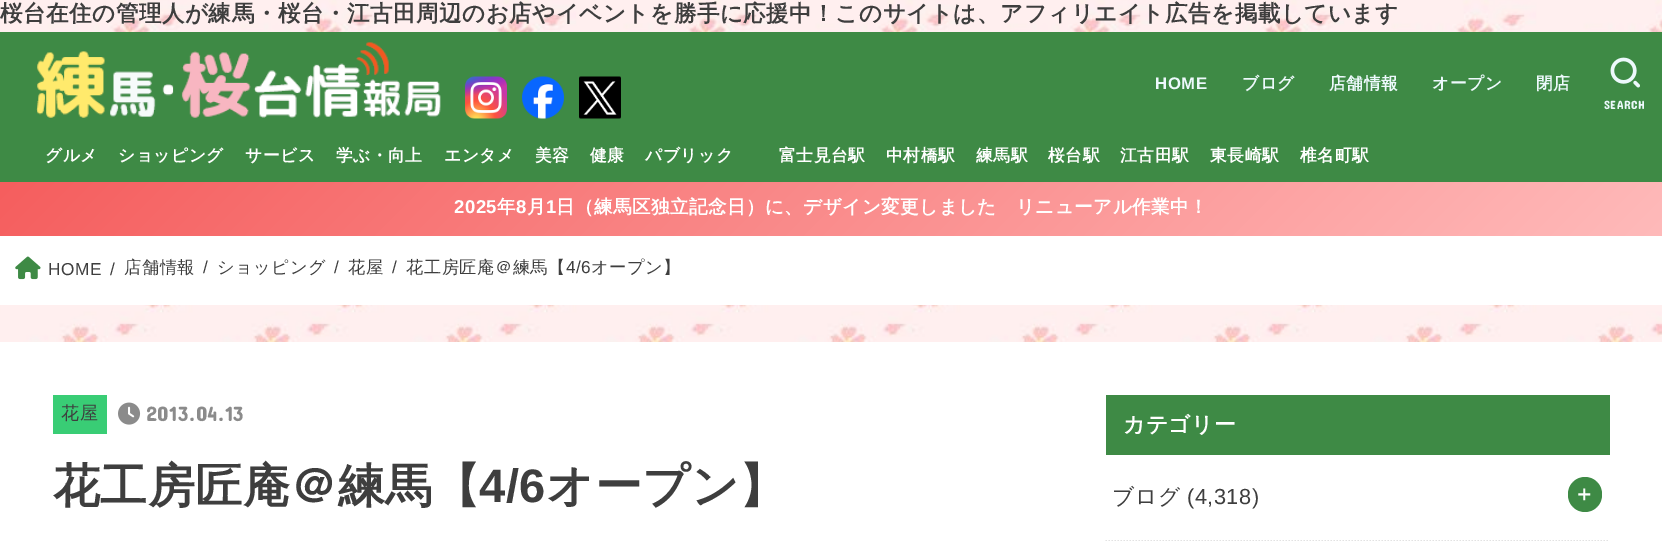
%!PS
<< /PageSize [1662 541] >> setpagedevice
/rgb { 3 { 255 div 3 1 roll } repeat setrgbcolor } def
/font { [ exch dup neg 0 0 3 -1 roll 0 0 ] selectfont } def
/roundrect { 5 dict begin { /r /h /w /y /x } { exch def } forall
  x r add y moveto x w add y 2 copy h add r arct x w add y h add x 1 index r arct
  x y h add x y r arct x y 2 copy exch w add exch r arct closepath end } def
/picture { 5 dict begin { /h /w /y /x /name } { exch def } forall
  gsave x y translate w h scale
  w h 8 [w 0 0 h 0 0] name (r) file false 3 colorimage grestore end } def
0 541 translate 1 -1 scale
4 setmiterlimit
255 255 255 rgb
0 0 1662 541 rectfill
(img_01.rgb) 0 0 1662 342 picture
62 138 69 rgb
0 32 1662 150 rectfill
(img_02.rgb) 36 42 405 76 picture
(img_03.rgb) 465 76 42 43 picture
(img_04.rgb) 522 76 42 43 picture
(img_05.rgb) 579 76 42 43 picture
(img_06.rgb) 1610 57 30 31 picture
gsave 0 182 moveto 1662 0 rlineto 0 54 rlineto -1662 0 rlineto closepath clip newpath
<< /ShadingType 2 /ColorSpace /DeviceRGB /Coords [402 -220 1260 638] /Extend [true true] /Function << /FunctionType 2 /Domain [0 1] /C0 [0.961 0.369 0.369] /C1 [1 0.729 0.729] /N 1 >> >> shfill grestore
255 255 255 rgb
0 236 1662 69 rectfill
(img_07.rgb) 15 256 26 24 picture
57 205 117 rgb
53 395 54 39 rectfill
(img_08.rgb) 118 402 23 23 picture
62 138 69 rgb
1106 395 504 60 rectfill
216 216 216 rgb
1.5 setlinewidth
[1.5 1.5] 0 setdash
1105.5 541 moveto 504 0 rlineto stroke
62 138 69 rgb
1568 477 34 35 17 roundrect fill
/WenQuanYiZenHei-Bold 22.5 font
62 62 62 rgb
0 21 moveto 0.55 0 (桜台在住の管理人が練馬・桜台・江古田周辺のお店やイベントを勝手に応援中！このサイトは、アフィリエイト広告を掲載しています) ashow
/LiberationSans-Bold 16.75 font
237 249 252 rgb
1155 89 moveto 0.5 0 (HOME) ashow
/WenQuanYiZenHei-Bold 16.75 font
1242 89 moveto 0.5 0 (ブログ) ashow
1329 89 moveto 0.5 0 (店舗情報) ashow
1432 89 moveto 0.5 0 (オープン) ashow
1536 89 moveto 0.5 0 (閉店) ashow
/ConcertOne-Regular 12 font
1604 109 moveto 0.5 0 (SEARCH) ashow
/WenQuanYiZenHei-Bold 16.75 font
255 255 255 rgb
45 161 moveto 0.5 0 (グルメ) ashow
118 161 moveto 0.5 0 (ショッピング) ashow
245 161 moveto 0.5 0 (サービス) ashow
336 161 moveto 0.5 0 (学ぶ・向上) ashow
444 161 moveto 0.5 0 (エンタメ) ashow
535 161 moveto 0.5 0 (美容) ashow
590 161 moveto 0.5 0 (健康) ashow
645 161 moveto 0.5 0 (パブリック) ashow
779 161 moveto 0.5 0 (富士見台駅) ashow
886 161 moveto 0.5 0 (中村橋駅) ashow
976 161 moveto 0.5 0 (練馬駅) ashow
1048 161 moveto 0.5 0 (桜台駅) ashow
1120 161 moveto 0.5 0 (江古田駅) ashow
1210 161 moveto 0.5 0 (東長崎駅) ashow
1300 161 moveto 0.5 0 (椎名町駅) ashow
/LiberationSans-Bold 18.55 font
454 213 moveto 0.45 0 (2025) ashow
/WenQuanYiZenHei-Bold 18.55 font
497 213 moveto 0.45 0 (年) ashow
/LiberationSans-Bold 18.55 font
516 213 moveto 0.45 0 (8) ashow
/WenQuanYiZenHei-Bold 18.55 font
527 213 moveto 0.45 0 (月) ashow
/LiberationSans-Bold 18.55 font
546 213 moveto 0.45 0 (1) ashow
/WenQuanYiZenHei-Bold 18.55 font
556 213 moveto 0.45 0 (日（練馬区独立記念日）に、デザイン変更しました　リニューアル作業中！) ashow
/LiberationSans-Regular 17.25 font
62 62 62 rgb
48 275 moveto 0.5 0 (HOME) ashow
110 275 moveto 0.5 0 (/) ashow
/WenQuanYiZenHei-Medium 17.25 font
124 273 moveto 0.5 0 (店舗情報) ashow
/LiberationSans-Regular 17.25 font
203 273 moveto 0.5 0 (/) ashow
/WenQuanYiZenHei-Medium 17.25 font
217 273 moveto 0.5 0 (ショッピング) ashow
/LiberationSans-Regular 17.25 font
334 273 moveto 0.5 0 (/) ashow
/WenQuanYiZenHei-Medium 17.25 font
348 273 moveto 0.5 0 (花屋) ashow
/LiberationSans-Regular 17.25 font
392 273 moveto 0.5 0 (/) ashow
/WenQuanYiZenHei-Medium 17.25 font
406 273 moveto 0.5 0 (花工房匠庵＠練馬【) ashow
/LiberationSans-Regular 17.25 font
566 273 moveto 0.5 0 (4/6) ashow
/WenQuanYiZenHei-Medium 17.25 font
591 273 moveto 0.5 0 (オープン】) ashow
/WenQuanYiZenHei-Medium 18 font
61 419 moveto 0.5 0 (花屋) ashow
/ConcertOne-Regular 21 font
139 139 139 rgb
146 421 moveto 0.5 0 (2013.04.13) ashow
/WenQuanYiZenHei-Bold 47 font
62 62 62 rgb
53 502 moveto 0.45 0 (花工房匠庵＠練馬【) ashow
/LiberationSans-Bold 47 font
479 502 moveto 0.45 0 (4/6) ashow
/WenQuanYiZenHei-Bold 47 font
546 502 moveto 0.45 0 (オープン】) ashow
/WenQuanYiZenHei-Bold 21.75 font
255 255 255 rgb
1123 432 moveto 0.45 0 (カテゴリー) ashow
/WenQuanYiZenHei-Medium 21.75 font
62 62 62 rgb
1112 504 moveto 0.5 0 (ブログ) ashow
/LiberationSans-Regular 21.75 font
1187 504 moveto 0.5 0 (\(4,318\)) ashow
/WenQuanYiZenHei-Bold 21.75 font
255 255 255 rgb
1573 501 moveto 0.5 0 (＋) ashow
showpage
